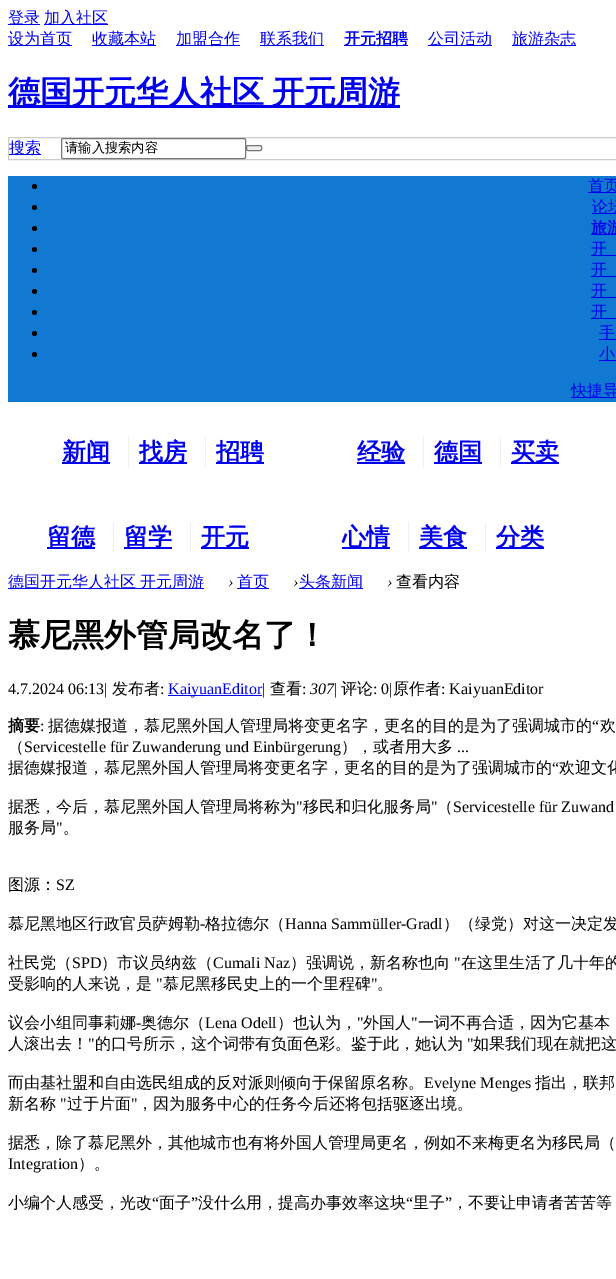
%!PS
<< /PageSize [616 1279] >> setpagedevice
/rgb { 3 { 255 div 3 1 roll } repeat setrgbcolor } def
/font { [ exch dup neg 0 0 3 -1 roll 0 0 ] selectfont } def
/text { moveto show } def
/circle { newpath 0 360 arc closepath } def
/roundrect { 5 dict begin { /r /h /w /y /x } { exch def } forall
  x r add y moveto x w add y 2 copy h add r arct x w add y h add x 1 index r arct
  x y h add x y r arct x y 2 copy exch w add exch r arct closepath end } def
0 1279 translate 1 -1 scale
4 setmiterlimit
255 255 255 rgb
0 0 616 1279 rectfill
0 0 238 rgb
8 24 32 1 rectfill
44 24 64 1 rectfill
8 45 64 1 rectfill
92 45 64 1 rectfill
176 45 64 1 rectfill
260 45 64 1 rectfill
344 45 64 1 rectfill
428 45 64 1 rectfill
512 45 64 1 rectfill
8 105 392 3 rectfill
204 204 204 rgb
8.5 137.5 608 22 rectstroke
0 0 238 rgb
9 154 32 1 rectfill
118 118 118 rgb
61.5 138.5 184 20 1.5 roundrect stroke
239 239 239 rgb
246.5 145.5 15 5 1.5 roundrect gsave fill grestore
118 118 118 rgb
stroke
17 121 209 rgb
8 176 608 226 rectfill
0 0 0 rgb
34.5 186.5 2.5 circle fill
0 0 238 rgb
588 192 28 1 rectfill
0 0 0 rgb
34.5 207.5 2.5 circle fill
0 0 238 rgb
592 213 24 1 rectfill
0 0 0 rgb
34.5 228.5 2.5 circle fill
0 0 238 rgb
591 234 25 1 rectfill
0 0 0 rgb
34.5 249.5 2.5 circle fill
0 0 238 rgb
591 255 25 1 rectfill
0 0 0 rgb
34.5 270.5 2.5 circle fill
0 0 238 rgb
591 276 25 1 rectfill
0 0 0 rgb
34.5 291.5 2.5 circle fill
0 0 238 rgb
591 297 25 1 rectfill
0 0 0 rgb
34.5 312.5 2.5 circle fill
0 0 238 rgb
591 318 25 1 rectfill
0 0 0 rgb
34.5 333.5 2.5 circle fill
0 0 238 rgb
599 339 17 1 rectfill
0 0 0 rgb
34.5 354.5 2.5 circle fill
0 0 238 rgb
599 360 17 1 rectfill
571 397 45 1 rectfill
238 238 238 rgb
128 437 1 30 rectfill
0 0 238 rgb
62 462 48 2 rectfill
238 238 238 rgb
205 437 1 30 rectfill
0 0 238 rgb
139 462 48 2 rectfill
216 462 48 2 rectfill
238 238 238 rgb
423 437 1 30 rectfill
0 0 238 rgb
357 462 48 2 rectfill
238 238 238 rgb
500 437 1 30 rectfill
0 0 238 rgb
434 462 48 2 rectfill
511 462 48 2 rectfill
238 238 238 rgb
113 522 1 30 rectfill
0 0 238 rgb
47 547 48 2 rectfill
238 238 238 rgb
190 522 1 30 rectfill
0 0 238 rgb
124 547 48 2 rectfill
201 547 48 2 rectfill
238 238 238 rgb
408 522 1 30 rectfill
0 0 238 rgb
342 547 48 2 rectfill
238 238 238 rgb
485 522 1 30 rectfill
0 0 238 rgb
419 547 48 2 rectfill
496 547 48 2 rectfill
8 588 196 1 rectfill
237 588 32 1 rectfill
299 588 64 1 rectfill
168 695 94 1 rectfill
/WenQuanYiZenHei-Medium 16 font
(登录) 8 23 text
(加入社区) 44 23 text
(设为首页) 8 44 text
(收藏本站) 92 44 text
(加盟合作) 176 44 text
(联系我们) 260 44 text
/WenQuanYiZenHei-Bold 16 font
(开元招聘) 344 44 text
/WenQuanYiZenHei-Medium 16 font
(公司活动) 428 44 text
(旅游杂志) 512 44 text
/WenQuanYiZenHei-Bold 32 font
8 103 moveto -2 0 32 (德国开元华人社区 开元周游) widthshow
/WenQuanYiZenHei-Medium 16 font
(搜索) 9 153 text
/WenQuanYiZenHei-Medium 13.25 font
0 0 0 rgb
(请输入搜索内容) 65 152 text
/WenQuanYiZenHei-Medium 16 font
0 0 238 rgb
(首页) 588 191 text
(论坛) 592 212 text
/WenQuanYiZenHei-Bold 16 font
(旅游) 591 233 text
/WenQuanYiZenHei-Medium 16 font
(开) 591 254 text
(开) 591 275 text
(开) 591 296 text
(开) 591 317 text
(手) 599 338 text
(小) 599 359 text
(快捷导) 571 396 text
/WenQuanYiZenHei-Bold 24 font
(新闻) 62 460 text
(找房) 139 460 text
(招聘) 216 460 text
(经验) 357 460 text
(德国) 434 460 text
(买卖) 511 460 text
(留德) 47 545 text
(留学) 124 545 text
(开元) 201 545 text
(心情) 342 545 text
(美食) 419 545 text
(分类) 496 545 text
/WenQuanYiZenHei-Medium 16 font
8 587 moveto -1 0 32 (德国开元华人社区 开元周游) widthshow
/LiberationSerif-Italic 16 font
0 0 0 rgb
(›) 228 587 text
/WenQuanYiZenHei-Medium 16 font
0 0 238 rgb
(首页) 237 587 text
/LiberationSerif-Italic 16 font
0 0 0 rgb
(›) 293 587 text
/WenQuanYiZenHei-Medium 16 font
0 0 238 rgb
(头条新闻) 299 587 text
/LiberationSerif-Italic 16 font
0 0 0 rgb
(›) 387 587 text
/WenQuanYiZenHei-Medium 16 font
(查看内容) 396 587 text
/WenQuanYiZenHei-Bold 32 font
(慕尼黑外管局改名了！) 8 646 text
/LiberationSerif-Regular 16 font
(4.7.2024 06:13|) 8 694 text
/WenQuanYiZenHei-Medium 16 font
(发布者) 112 694 text
/LiberationSerif-Regular 16 font
(:) 160 694 text
0 0 238 rgb
(KaiyuanEditor) 168 694 text
0 0 0 rgb
(|) 262 694 text
/WenQuanYiZenHei-Medium 16 font
(查看) 270 694 text
/LiberationSerif-Regular 16 font
(:) 302 694 text
/LiberationSerif-Italic 16 font
(307) 310 694 text
/LiberationSerif-Regular 16 font
(|) 334 694 text
/WenQuanYiZenHei-Medium 16 font
(评论) 341 694 text
/LiberationSerif-Regular 16 font
(: 0|) 373 694 text
/WenQuanYiZenHei-Medium 16 font
(原作者) 393 694 text
/LiberationSerif-Regular 16 font
(: KaiyuanEditor) 441 694 text
/WenQuanYiZenHei-Bold 16 font
(摘要) 8 731 text
/WenQuanYiZenHei-Medium 16 font
(据德媒报道，慕尼黑外国人管理局将变更名字，更名的目的是为了强调城市的) 48 731 text
/LiberationSerif-Regular 16 font
(“) 592 731 text
/WenQuanYiZenHei-Medium 16 font
(欢) 600 731 text
/LiberationSerif-Regular 16 font
(:) 40 731 text
/WenQuanYiZenHei-Medium 16 font
(（) 8 752 text
/LiberationSerif-Regular 16 font
(Servicestelle für Zuwanderung und Einbürgerung) 24 752 text
/WenQuanYiZenHei-Medium 16 font
(），或者用大多) 341 752 text
/LiberationSerif-Regular 16 font
(...) 457 752 text
/WenQuanYiZenHei-Medium 16 font
(据德媒报道，慕尼黑外国人管理局将变更名字，更名的目的是为了强调城市的) 8 773 text
/LiberationSerif-Regular 16 font
(“) 552 773 text
/WenQuanYiZenHei-Medium 16 font
(欢迎文化) 559 773 text
(据悉，今后，慕尼黑外国人管理局将称为) 8 812 text
/LiberationSerif-Regular 16 font
(") 296 812 text
/WenQuanYiZenHei-Medium 16 font
(移民和归化服务局) 303 812 text
/LiberationSerif-Regular 16 font
(") 431 812 text
/WenQuanYiZenHei-Medium 16 font
(（) 437 812 text
/LiberationSerif-Regular 16 font
(Servicestelle für Zuwand) 453 812 text
/WenQuanYiZenHei-Medium 16 font
(服务局) 8 833 text
/LiberationSerif-Regular 16 font
(") 56 833 text
/WenQuanYiZenHei-Medium 16 font
(。) 63 833 text
(图源：) 8 890 text
/LiberationSerif-Regular 16 font
(SZ) 56 890 text
/WenQuanYiZenHei-Medium 16 font
(慕尼黑地区行政官员萨姆勒) 8 929 text
/LiberationSerif-Regular 16 font
(-) 200 929 text
/WenQuanYiZenHei-Medium 16 font
(格拉德尔（) 205 929 text
/LiberationSerif-Regular 16 font
(Hanna Sammüller-Gradl) 285 929 text
/WenQuanYiZenHei-Medium 16 font
(）（绿党）对这一决定发) 443 929 text
(社民党（) 8 968 text
/LiberationSerif-Regular 16 font
(SPD) 72 968 text
/WenQuanYiZenHei-Medium 16 font
(）市议员纳兹（) 101 968 text
/LiberationSerif-Regular 16 font
(Cumali Naz) 213 968 text
/WenQuanYiZenHei-Medium 16 font
(）强调说，新名称也向) 290 968 text
/LiberationSerif-Regular 16 font
(") 454 968 text
/WenQuanYiZenHei-Medium 16 font
(在这里生活了几十年的) 461 968 text
(受影响的人来说，是) 8 989 text
/LiberationSerif-Regular 16 font
(") 156 989 text
/WenQuanYiZenHei-Medium 16 font
(慕尼黑移民史上的一个里程碑) 163 989 text
/LiberationSerif-Regular 16 font
(") 371 989 text
/WenQuanYiZenHei-Medium 16 font
(。) 377 989 text
(议会小组同事莉娜) 8 1028 text
(奥德尔（) 141 1028 text
/LiberationSerif-Regular 16 font
(Lena Odell) 205 1028 text
/WenQuanYiZenHei-Medium 16 font
(）也认为，) 277 1028 text
/LiberationSerif-Regular 16 font
(") 357 1028 text
/WenQuanYiZenHei-Medium 16 font
(外国人) 363 1028 text
/LiberationSerif-Regular 16 font
(") 411 1028 text
/WenQuanYiZenHei-Medium 16 font
(一词不再合适，因为它基本) 418 1028 text
/LiberationSerif-Regular 16 font
(-) 136 1028 text
/WenQuanYiZenHei-Medium 16 font
(人滚出去！) 8 1049 text
/LiberationSerif-Regular 16 font
(") 88 1049 text
/WenQuanYiZenHei-Medium 16 font
(的口号所示，这个词带有负面色彩。鉴于此，她认为) 95 1049 text
/LiberationSerif-Regular 16 font
(") 467 1049 text
/WenQuanYiZenHei-Medium 16 font
(如果我们现在就把这) 473 1049 text
(而由基社盟和自由选民组成的反对派则倾向于保留原名称。) 8 1088 text
/LiberationSerif-Regular 16 font
(Evelyne Menges) 424 1088 text
/WenQuanYiZenHei-Medium 16 font
(指出，联邦) 535 1088 text
(新名称) 8 1109 text
/LiberationSerif-Regular 16 font
(") 60 1109 text
/WenQuanYiZenHei-Medium 16 font
(过于片面) 67 1109 text
/LiberationSerif-Regular 16 font
(") 131 1109 text
/WenQuanYiZenHei-Medium 16 font
(，因为服务中心的任务今后还将包括驱逐出境。) 137 1109 text
(据悉，除了慕尼黑外，其他城市也有将外国人管理局更名，例如不来梅更名为移民局（) 8 1148 text
/LiberationSerif-Regular 16 font
(Integration) 8 1169 text
/WenQuanYiZenHei-Medium 16 font
(）。) 78 1169 text
(小编个人感受，光改) 8 1208 text
/LiberationSerif-Regular 16 font
(“) 152 1208 text
/WenQuanYiZenHei-Medium 16 font
(面子) 159 1208 text
/LiberationSerif-Regular 16 font
(”) 191 1208 text
/WenQuanYiZenHei-Medium 16 font
(没什么用，提高办事效率这块) 198 1208 text
/LiberationSerif-Regular 16 font
(“) 406 1208 text
/WenQuanYiZenHei-Medium 16 font
(里子) 413 1208 text
/LiberationSerif-Regular 16 font
(”) 445 1208 text
/WenQuanYiZenHei-Medium 16 font
(，不要让申请者苦苦等) 452 1208 text
showpage
